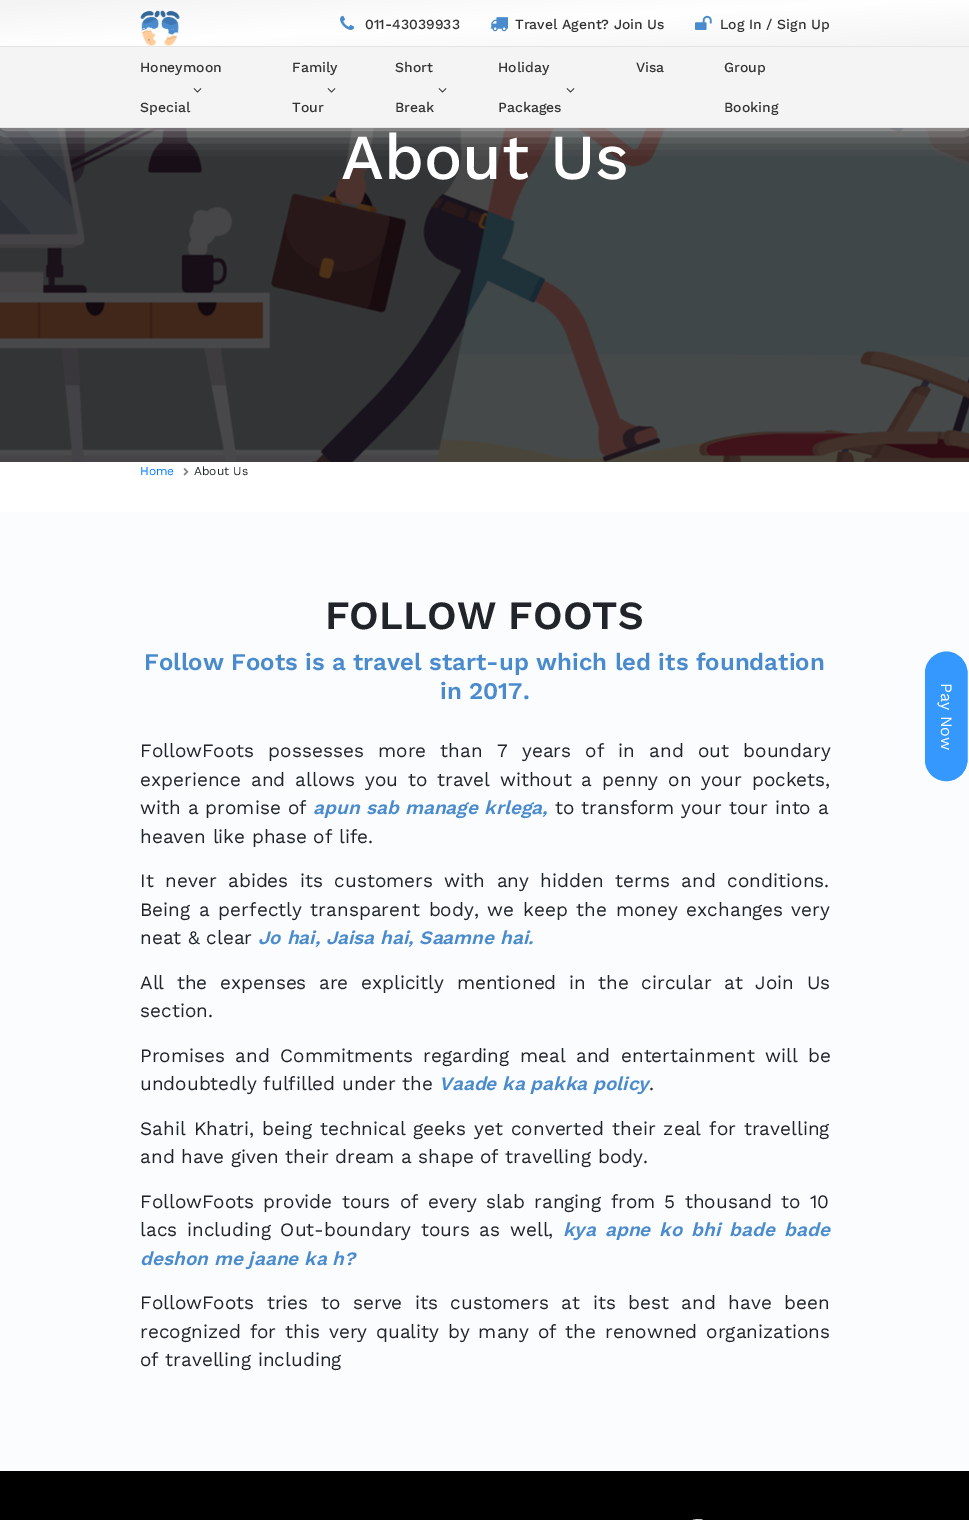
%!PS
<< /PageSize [969 1520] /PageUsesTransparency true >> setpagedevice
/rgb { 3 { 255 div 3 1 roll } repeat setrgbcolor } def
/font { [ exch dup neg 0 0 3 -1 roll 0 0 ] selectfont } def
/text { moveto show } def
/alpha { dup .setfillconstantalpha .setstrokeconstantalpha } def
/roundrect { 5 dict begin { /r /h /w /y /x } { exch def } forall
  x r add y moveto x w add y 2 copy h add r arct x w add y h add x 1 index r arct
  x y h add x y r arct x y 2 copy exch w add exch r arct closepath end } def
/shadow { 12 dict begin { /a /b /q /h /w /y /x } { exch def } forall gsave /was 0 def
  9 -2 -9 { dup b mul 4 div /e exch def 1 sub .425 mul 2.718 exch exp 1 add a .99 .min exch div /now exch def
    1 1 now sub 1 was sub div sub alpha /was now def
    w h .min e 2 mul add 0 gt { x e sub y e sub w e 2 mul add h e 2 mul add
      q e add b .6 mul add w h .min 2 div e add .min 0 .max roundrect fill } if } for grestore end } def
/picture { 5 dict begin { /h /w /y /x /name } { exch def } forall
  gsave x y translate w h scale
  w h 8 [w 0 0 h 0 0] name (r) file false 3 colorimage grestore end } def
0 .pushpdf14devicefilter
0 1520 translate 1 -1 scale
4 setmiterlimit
255 255 255 rgb
0 0 969 1520 rectfill
(img_06.rgb) 0 128 969 334 picture
210 210 210 rgb
0 0 969 128 0 12.5 1 shadow
gsave 0 0 moveto 969 0 rlineto 0 46 rlineto -969 0 rlineto closepath clip newpath
<< /ShadingType 2 /ColorSpace /DeviceRGB /Coords [482 -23 487 69] /Extend [true true] /Function << /FunctionType 3 /Domain [0 1] /Functions [<< /FunctionType 2 /Domain [0 1] /C0 [0.961 0.957 0.957] /C1 [1 1 1] /N 1 >> << /FunctionType 2 /Domain [0 1] /C0 [1 1 1] /C1 [0.961 0.957 0.957] /N 1 >>] /Bounds [0.5] /Encode [0 1 0 1] >> >> shfill grestore
(img_01.rgb) 140 10 40 36 picture
(img_02.rgb) 340 15 15 15 picture
(img_03.rgb) 490 17 18 15 picture
(img_04.rgb) 695 15 17 15 picture
245 244 244 rgb
0 47 969 80 rectfill
228 228 228 rgb
0 46 969 1 rectfill
0 127 969 1 rectfill
(img_05.rgb) 193 88 9 5 picture
(img_05.rgb) 327 88 9 5 picture
(img_05.rgb) 438 88 9 5 picture
(img_05.rgb) 566 88 9 5 picture
(img_07.rgb) 183 468 6 8 picture
250 252 254 rgb
0 512 969 959 rectfill
52 152 255 rgb
967 673 moveto 0 87 rlineto 0 12 -9 21 -21 21 rcurveto -11 0 -21 -9 -21 -21 rcurveto 0 -87 rlineto 0 -12 10 -21 21 -21 rcurveto 12 0 21 9 21 21 rcurveto closepath fill
967 673 moveto 0 87 rlineto 0 11.5 -9.5 20.5 -20.5 20.5 rcurveto -11.5 0 -20.5 -9 -20.5 -20.5 rcurveto 0 -87 rlineto 0 -11.5 9 -21 20.5 -21 rcurveto 11 0 20.5 9.5 20.5 21 rcurveto closepath stroke
0 0 0 rgb
0 1471 969 49 rectfill
(img_08.rgb) 692 1519 11 1 picture
/WorkSans-Medium 14 font
51 51 51 rgb
(011-43039933) 365 29 text
(Travel Agent? Join Us) 515 29 text
(Log In / Sign Up) 720 29 text
(Honeymoon) 140 72 text
(Special) 140 112 text
(Family) 292 72 text
(Tour) 292 112 text
(Short) 395 72 text
(Break) 395 112 text
(Holiday) 498 72 text
(Packages) 498 112 text
(Visa) 636 72 text
(Group) 724 72 text
(Booking) 724 112 text
/WorkSans-Medium 64 font
255 255 255 rgb
(About Us) 341 179 text
/WorkSans-Regular 12 font
0 123 255 rgb
(Home) 140 475 text
33 37 41 rgb
(About Us) 194 475 text
/WorkSans-SemiBold 40 font
(FOLLOW FOOTS) 325 629 text
/WorkSans-SemiBold 24 font
74 139 205 rgb
(Follow Foots is a travel start-up which led its foundation) 144 670 text
(in 2017.) 440 699 text
/WorkSans-Regular 19 font
33 37 41 rgb
140 757 moveto 7.75 0 32 (FollowFoots possesses more than 7 years of in and out boundary) widthshow
140 786 moveto 3.4 0 32 (experience and allows you to travel without a penny on your pockets,) widthshow
140 814 moveto 0.5 0 32 (with a promise of) widthshow
/WorkSans-SemiBoldItalic 19 font
74 139 205 rgb
313 814 moveto 0.5 0 32 (apun sab manage krlega,) widthshow
/WorkSans-Regular 19 font
33 37 41 rgb
555 814 moveto 0.5 0 32 (to transform your tour into a) widthshow
(heaven like phase of life.) 140 843 text
140 887 moveto 5 0 32 (It never abides its customers with any hidden terms and conditions.) widthshow
140 916 moveto 2.25 0 32 (Being a perfectly transparent body, we keep the money exchanges) widthshow
(very) 791 916 text
(neat & clear) 140 944 text
/WorkSans-SemiBoldItalic 19 font
74 139 205 rgb
(Jo hai, Jaisa hai, Saamne hai.) 258 944 text
/WorkSans-Regular 19 font
33 37 41 rgb
140 989 moveto 6 0 32 (All the expenses are explicitly mentioned in the circular at Join Us) widthshow
(section.) 140 1017 text
140 1062 moveto 4 0 32 (Promises and Commitments regarding meal and entertainment will be) widthshow
(undoubtedly fulfilled under the) 140 1090 text
/WorkSans-SemiBoldItalic 19 font
74 139 205 rgb
(Vaade ka pakka policy) 439 1090 text
/WorkSans-Regular 19 font
33 37 41 rgb
(.) 649 1090 text
140 1135 moveto 1.5 0 32 (Sahil Khatri, being technical geeks yet converted their zeal for travelling) widthshow
(and have given their dream a shape of travelling body.) 140 1163 text
140 1208 moveto 2.75 0 32 (FollowFoots provide tours of every slab ranging from 5 thousand to 10) widthshow
140 1236 moveto 3.25 0 32 (lacs including Out-boundary tours as well,) widthshow
/WorkSans-SemiBoldItalic 19 font
74 139 205 rgb
563 1236 moveto 3.25 0 32 (kya apne ko bhi bade bade) widthshow
(deshon me jaane ka h?) 140 1265 text
/WorkSans-Regular 19 font
33 37 41 rgb
140 1309 moveto 6 0 32 (FollowFoots tries to serve its customers at its best and have been) widthshow
140 1338 moveto 2.4 0 32 (recognized for this very quality by many of the renowned organizations) widthshow
(of travelling including) 140 1366 text
/WorkSans-Regular 16 font
255 255 255 rgb
gsave 941 683 translate 90 rotate 0 0 moveto (Pay Now) show grestore
.poppdf14devicefilter showpage
